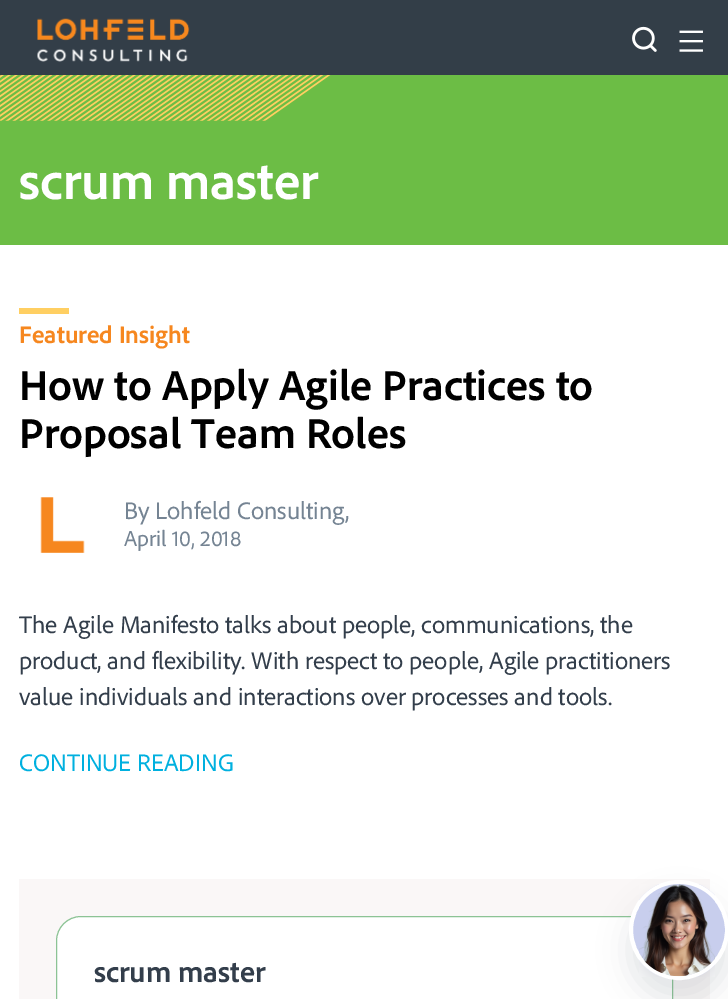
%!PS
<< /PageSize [728 999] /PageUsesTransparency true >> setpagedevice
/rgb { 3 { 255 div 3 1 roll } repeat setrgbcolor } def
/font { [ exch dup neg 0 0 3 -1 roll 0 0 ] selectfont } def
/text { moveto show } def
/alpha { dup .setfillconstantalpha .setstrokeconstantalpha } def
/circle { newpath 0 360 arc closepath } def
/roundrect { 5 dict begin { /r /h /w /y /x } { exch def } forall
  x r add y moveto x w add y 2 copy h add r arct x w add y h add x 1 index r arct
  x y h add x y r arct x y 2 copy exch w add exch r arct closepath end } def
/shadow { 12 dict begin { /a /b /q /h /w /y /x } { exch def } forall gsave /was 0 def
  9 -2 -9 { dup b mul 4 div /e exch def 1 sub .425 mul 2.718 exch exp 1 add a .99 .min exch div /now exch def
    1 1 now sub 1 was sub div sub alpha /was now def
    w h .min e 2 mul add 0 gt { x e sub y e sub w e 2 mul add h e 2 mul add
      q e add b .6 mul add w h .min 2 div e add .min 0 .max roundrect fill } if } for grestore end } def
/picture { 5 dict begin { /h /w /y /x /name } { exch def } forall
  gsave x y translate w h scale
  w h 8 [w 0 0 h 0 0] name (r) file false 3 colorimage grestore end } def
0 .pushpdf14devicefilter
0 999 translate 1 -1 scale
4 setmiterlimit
255 255 255 rgb
0 0 728 999 rectfill
51 62 72 rgb
0 0 728 75 rectfill
(img_01.rgb) 37 18 153 44 picture
(img_02.rgb) 632 26 25 26 picture
(img_03.rgb) 679 30 24 22 picture
108 189 69 rgb
0 75 728 170 rectfill
(img_04.rgb) 0 75 331 46 picture
255 207 98 rgb
19 308 50 6 rectfill
(img_05.rgb) 40 497 45 56 picture
250 247 247 rgb
19 879 691 120 rectfill
255 255 255 rgb
56.5 916.5 616 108 24.5 roundrect gsave fill grestore
140 195 149 rgb
stroke
84 95 111 rgb
629 900 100 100 50 15 0.16 shadow
200 206 237 rgb
679 930 48 circle gsave fill grestore
255 255 255 rgb
4 setlinewidth
stroke
(img_06.rgb) 639 884 76 93 picture
/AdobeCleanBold-Bold 52.5 font
(scrum master) 19 199 text
/AdobeCleanBold-Bold 25 font
246 135 31 rgb
(Featured Insight) 19 343 text
/AdobeCleanBold-Bold 43.75 font
0 0 0 rgb
(How to Apply Agile Practices to) 19 400 text
(Proposal Team Roles) 19 448 text
/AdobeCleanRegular-Regular 25 font
117 132 147 rgb
(By Lohfeld Consulting,) 124 519 text
/AdobeCleanRegular-Regular 22.5 font
(April 10, 2018) 124 546 text
/AdobeCleanRegular-Regular 25 font
51 62 75 rgb
(The Agile Manifesto talks about people, communications, the) 19 633 text
(product, and flexibility. With respect to people, Agile practitioners) 19 669 text
(value individuals and interactions over processes and tools.) 19 705 text
0 176 223 rgb
(CONTINUE READING) 19 771 text
/AdobeCleanBold-Bold 30 font
51 62 75 rgb
(scrum master) 94 982 text
.poppdf14devicefilter showpage
